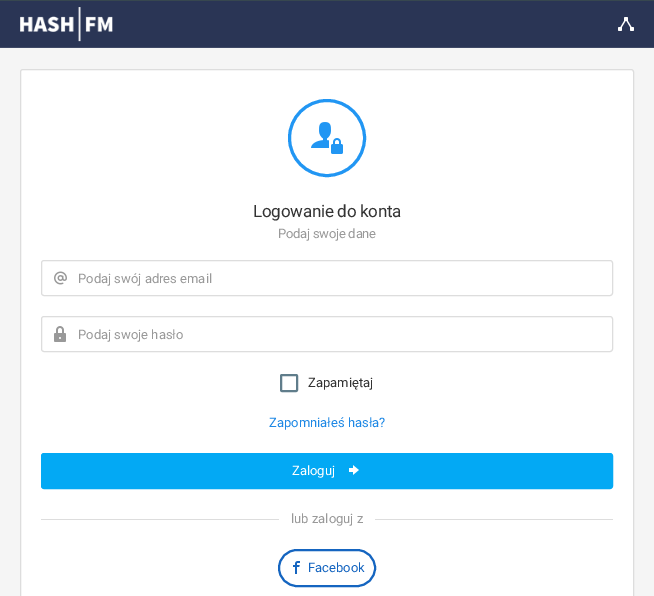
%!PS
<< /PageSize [654 596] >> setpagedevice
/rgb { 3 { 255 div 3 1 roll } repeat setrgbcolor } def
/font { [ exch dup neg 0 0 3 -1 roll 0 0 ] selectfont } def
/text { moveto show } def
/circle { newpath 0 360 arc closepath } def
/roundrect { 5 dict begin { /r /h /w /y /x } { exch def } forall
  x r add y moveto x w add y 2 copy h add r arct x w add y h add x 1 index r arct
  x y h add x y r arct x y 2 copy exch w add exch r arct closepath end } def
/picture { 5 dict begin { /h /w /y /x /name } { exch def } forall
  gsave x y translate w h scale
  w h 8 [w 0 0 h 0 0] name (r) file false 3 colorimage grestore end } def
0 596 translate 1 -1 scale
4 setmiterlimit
245 245 245 rgb
0 0 654 596 rectfill
42 53 85 rgb
0 1 654 46 rectfill
55 71 79 rgb
0 0 654 1 rectfill
63 73 102 rgb
0 47 654 1 rectfill
(img_01.rgb) 20 7 93 35 picture
(img_02.rgb) 618 17 16 14 picture
255 255 255 rgb
20.5 69.5 613 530 2.5 roundrect gsave fill grestore
221 221 221 rgb
stroke
33 150 243 rgb
3 setlinewidth
327 138 37.5 circle stroke
(img_03.rgb) 311 122 32 32 picture
221 221 221 rgb
1 setlinewidth
41.5 260.5 571 35 2.5 roundrect stroke
(img_04.rgb) 54 271 13 14 picture
41.5 316.5 571 35 2.5 roundrect stroke
(img_05.rgb) 54 326 12 16 picture
96 125 139 rgb
2 setlinewidth
281 375 16 16 1 roundrect stroke
3 169 244 rgb
41.5 453.5 571 35 2.5 roundrect gsave fill grestore
1 setlinewidth
stroke
(img_06.rgb) 349 465 10 10 picture
221 221 221 rgb
41 519 572 1 rectfill
255 255 255 rgb
279 519 96 1 rectfill
21 101 192 rgb
2 setlinewidth
279 550 96 36 18 roundrect stroke
(img_07.rgb) 293 561 7 13 picture
/Roboto-Regular 17 font
51 51 51 rgb
253 217 moveto -0.25 0 (Logowanie do konta) ashow
/Roboto-Regular 13 font
153 153 153 rgb
278 238 moveto -0.25 0 (Podaj swoje dane) ashow
(Podaj swój adres email) 78 283 text
(Podaj swoje hasło) 78 339 text
51 51 51 rgb
(Zapamiętaj) 308 387 text
30 136 229 rgb
(Zapomniałeś hasła?) 269 427 text
255 255 255 rgb
(Zaloguj) 292 475 text
153 153 153 rgb
(lub zaloguj z) 291 523 text
21 101 192 rgb
(Facebook) 308 572 text
showpage
